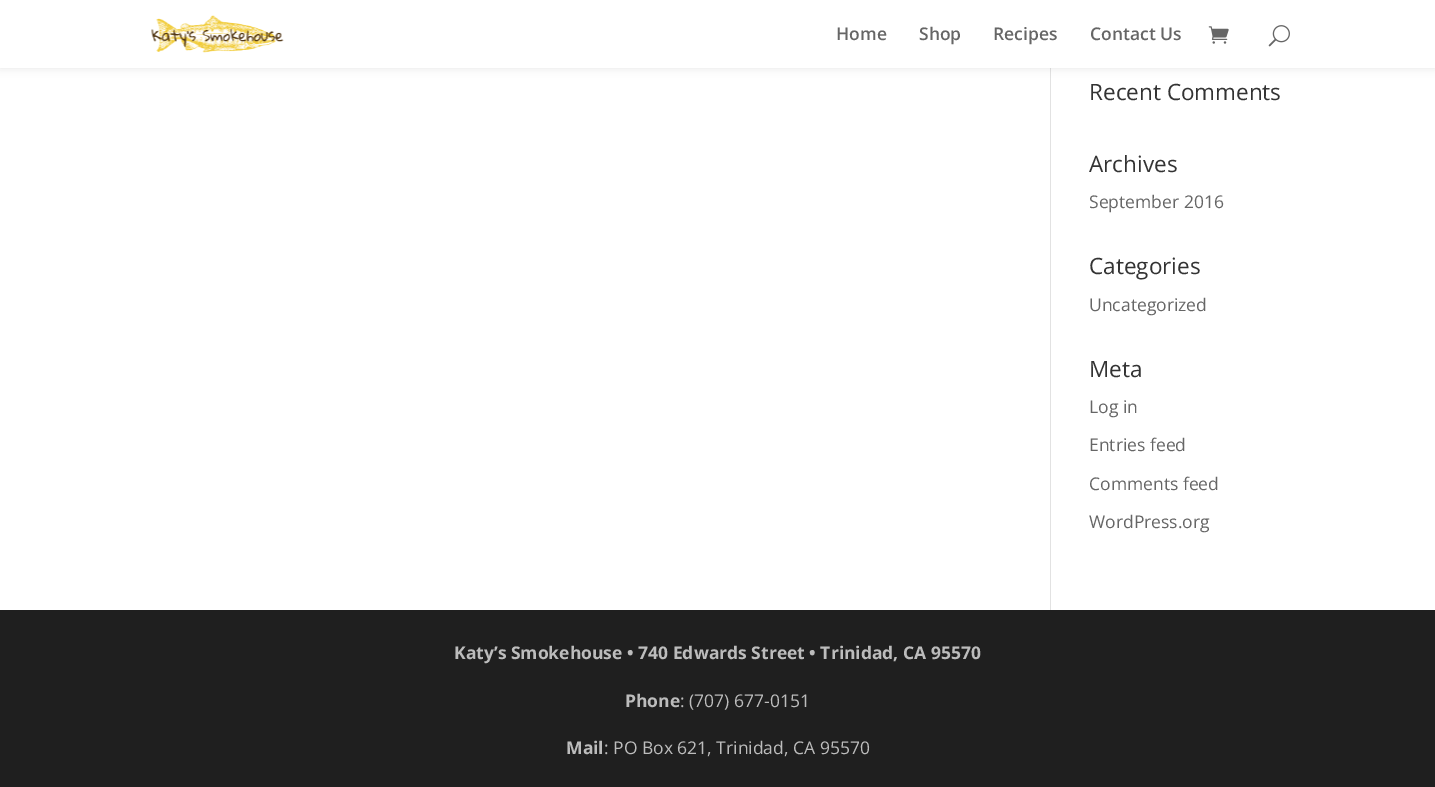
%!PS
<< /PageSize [1435 787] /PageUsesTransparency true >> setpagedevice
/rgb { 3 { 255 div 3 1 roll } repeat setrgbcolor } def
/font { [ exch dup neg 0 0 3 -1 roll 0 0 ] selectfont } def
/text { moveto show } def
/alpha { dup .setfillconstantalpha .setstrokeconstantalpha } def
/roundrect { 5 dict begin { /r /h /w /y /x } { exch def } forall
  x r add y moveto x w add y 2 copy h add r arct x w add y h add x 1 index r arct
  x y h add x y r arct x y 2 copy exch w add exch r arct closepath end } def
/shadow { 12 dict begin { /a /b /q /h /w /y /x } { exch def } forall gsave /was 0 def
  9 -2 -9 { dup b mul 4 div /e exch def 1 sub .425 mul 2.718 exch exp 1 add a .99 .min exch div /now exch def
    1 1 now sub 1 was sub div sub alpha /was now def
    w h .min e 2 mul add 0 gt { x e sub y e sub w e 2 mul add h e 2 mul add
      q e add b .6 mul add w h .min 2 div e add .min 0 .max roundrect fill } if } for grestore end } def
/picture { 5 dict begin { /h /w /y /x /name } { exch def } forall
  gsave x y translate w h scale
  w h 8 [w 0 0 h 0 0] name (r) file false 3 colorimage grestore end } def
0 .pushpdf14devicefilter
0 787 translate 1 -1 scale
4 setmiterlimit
255 255 255 rgb
0 0 1435 787 rectfill
226 226 226 rgb
1050 68 1 542 rectfill
0 0 0 rgb
0 0 1435 68 0 4.5 0.1 shadow
255 255 255 rgb
0 0 1435 68 rectfill
(img_01.rgb) 151 15 133 38 picture
(img_02.rgb) 1208 26 21 18 picture
(img_03.rgb) 1268 25 22 22 picture
31 31 31 rgb
0 610 1435 177 rectfill
/OpenSans-SemiBold 17.5 font
102 102 102 rgb
(Home) 836 40 text
(Shop) 919 40 text
(Recipes) 993 40 text
(Contact Us) 1090 40 text
/OpenSans-Regular 22.5 font
51 51 51 rgb
(Recent Comments) 1089 100 text
(Archives) 1089 172 text
/OpenSans-Regular 17.5 font
102 102 102 rgb
(September 2016) 1089 208 text
/OpenSans-Regular 22.5 font
51 51 51 rgb
(Categories) 1089 274 text
/OpenSans-Regular 17.5 font
102 102 102 rgb
(Uncategorized) 1089 311 text
/OpenSans-Regular 22.5 font
51 51 51 rgb
(Meta) 1089 377 text
/OpenSans-Regular 17.5 font
102 102 102 rgb
(Log in) 1089 413 text
(Entries feed) 1089 451 text
(Comments feed) 1089 490 text
(WordPress.org) 1089 528 text
/OpenSans-Bold 17.5 font
188 188 188 rgb
(Katy’s Smokehouse • 740 Edwards Street • Trinidad, CA 95570) 454 659 text
(Phone) 625 707 text
/OpenSans-Regular 17.5 font
(: \(707\) 677-0151) 680 707 text
/OpenSans-Bold 17.5 font
(Mail) 566 754 text
/OpenSans-Regular 17.5 font
(: PO Box 621, Trinidad, CA 95570) 604 754 text
.poppdf14devicefilter showpage
